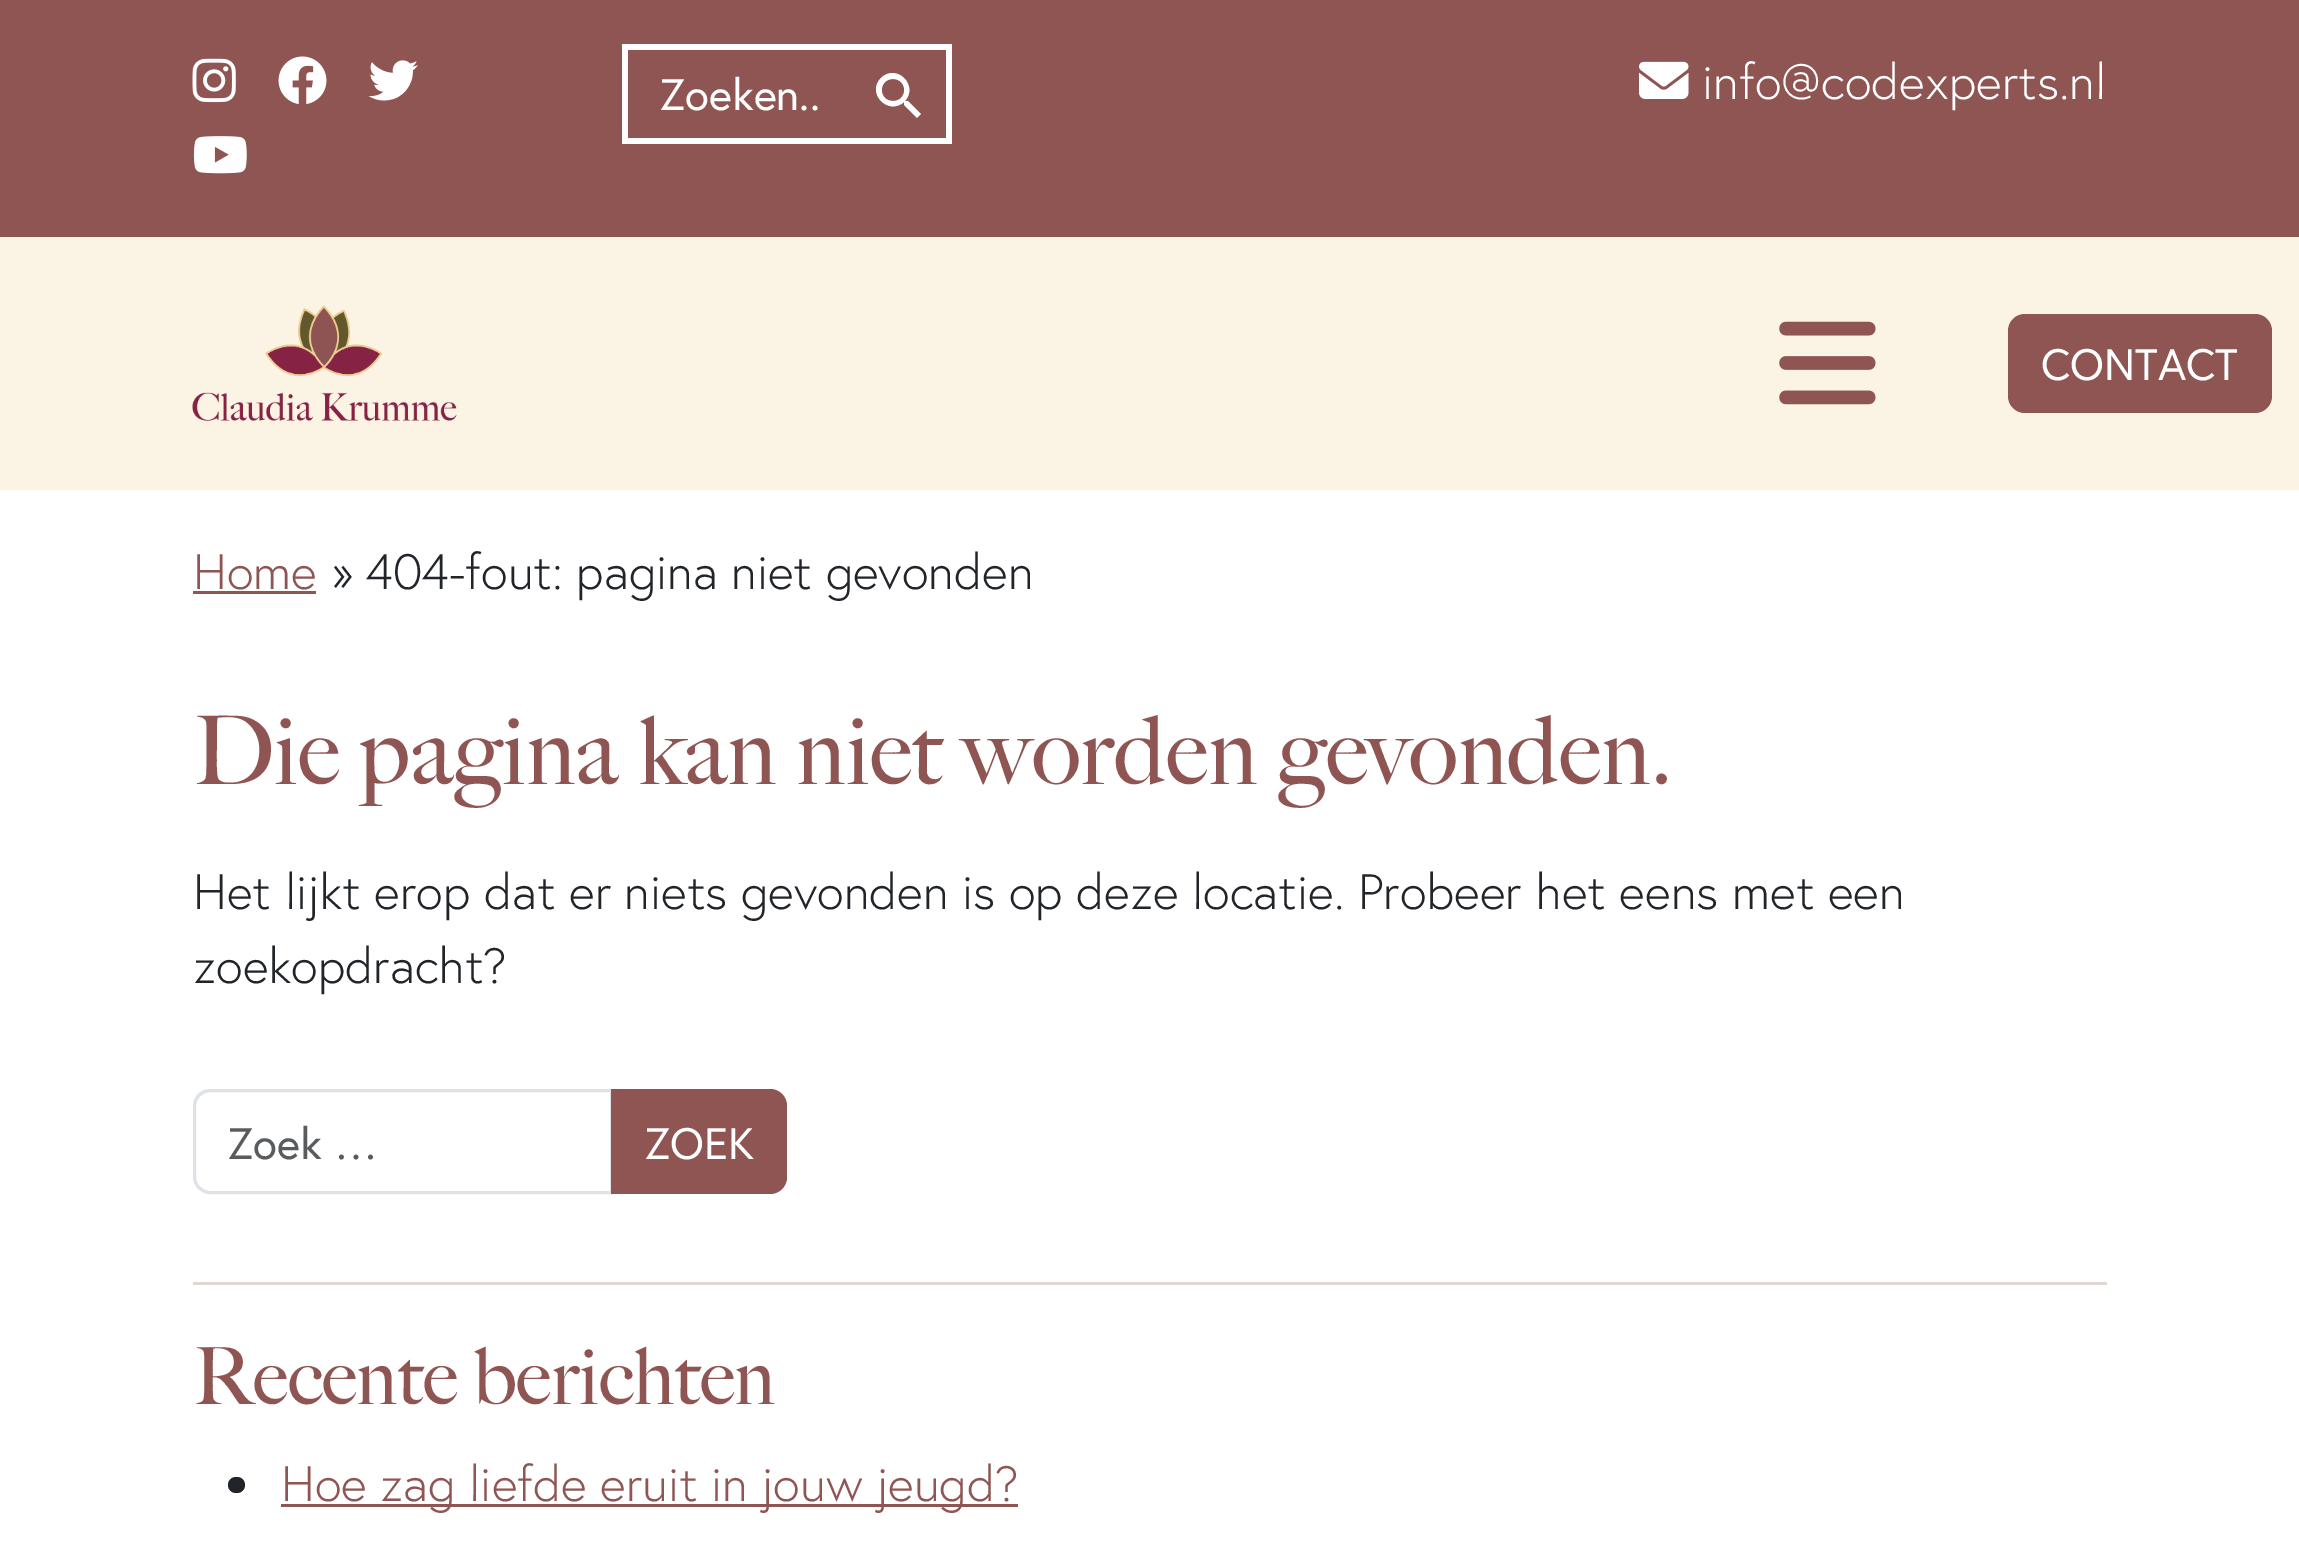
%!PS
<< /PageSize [2299 1551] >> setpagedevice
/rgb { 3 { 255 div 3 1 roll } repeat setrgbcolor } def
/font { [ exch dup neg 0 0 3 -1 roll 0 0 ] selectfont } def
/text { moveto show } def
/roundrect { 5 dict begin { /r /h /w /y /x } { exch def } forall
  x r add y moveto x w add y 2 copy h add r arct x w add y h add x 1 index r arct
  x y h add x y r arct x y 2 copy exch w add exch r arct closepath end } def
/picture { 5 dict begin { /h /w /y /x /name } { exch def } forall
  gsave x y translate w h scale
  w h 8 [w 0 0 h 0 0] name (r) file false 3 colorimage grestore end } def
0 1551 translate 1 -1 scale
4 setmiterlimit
255 255 255 rgb
0 0 2299 1551 rectfill
143 85 83 rgb
0 0 2299 237 rectfill
(img_01.rgb) 192 58 44 45 picture
(img_02.rgb) 278 56 49 49 picture
(img_03.rgb) 368 60 50 41 picture
(img_04.rgb) 193 136 54 38 picture
255 255 255 rgb
622 44 330 6 rectfill
946 44 6 99 rectfill
622 138 330 6 rectfill
908 101 moveto -2 0 rlineto -1 0 rlineto 14 -16 -9 -38 -24 -23 rcurveto -15 15 7 38 23 24 rcurveto 0 1 rlineto 0 2 rlineto 13 13 rlineto 4 -4 rlineto closepath 893 101 moveto -15 0 -15 -22 0 -22 rcurveto 15 0 15 22 0 22 rcurveto closepath fill
622 44 6 99 rectfill
(img_05.rgb) 1639 61 50 38 picture
251 243 228 rgb
0 237 2299 253 rectfill
(img_06.rgb) 192 305 265 116 picture
(img_07.rgb) 1779 321 97 84 picture
143 85 83 rgb
2008 314 264 99 17 roundrect fill
193 591 123 3 rectfill
222 226 230 rgb
3 setlinewidth
210 1090.5 moveto 401.5 0 rlineto 0 102 rlineto -401.5 0 rlineto -8.5 0 -15.5 -7 -15.5 -15.5 rcurveto 0 -71 rlineto 0 -8.5 7 -15.5 15.5 -15.5 rcurveto closepath stroke
143 85 83 rgb
611 1089 moveto 159 0 rlineto 9.5 0 17 7.5 17 17 rcurveto 0 71 rlineto 0 9.5 -7.5 17 -17 17 rcurveto -159 0 rlineto closepath fill
227 213 212 rgb
193 1282 1914 3 rectfill
33 37 41 rgb
228 1477 17 16 8 roundrect fill
143 85 83 rgb
281 1504 737 3 rectfill
/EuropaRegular-Regular 44 font
255 255 255 rgb
(Zoeken..) 660 110 text
/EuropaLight-Light 49.5 font
(info@codexperts.nl) 1702 99 text
/EuropaRegular-Regular 44 font
(CONTACT) 2041 380 text
/EuropaLight-Light 49.5 font
143 85 83 rgb
(Home) 193 589 text
33 37 41 rgb
(» 404-fout: pagina niet gevonden) 330 589 text
/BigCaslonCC-Regular 95 font
143 85 83 rgb
(Die pagina kan niet worden gevonden.) 193 784 text
/EuropaLight-Light 49.5 font
33 37 41 rgb
(Het lijkt erop dat er niets gevonden is op deze locatie. Probeer het eens met een) 193 909 text
(zoekopdracht?) 193 983 text
/EuropaRegular-Regular 44 font
89 92 95 rgb
(Zoek …) 228 1159 text
255 255 255 rgb
(ZOEK) 645 1159 text
/BigCaslonCC-Regular 79 font
143 85 83 rgb
(Recente berichten) 193 1404 text
/EuropaLight-Light 49.5 font
(Hoe zag liefde eruit in jouw jeugd?) 281 1501 text
showpage
